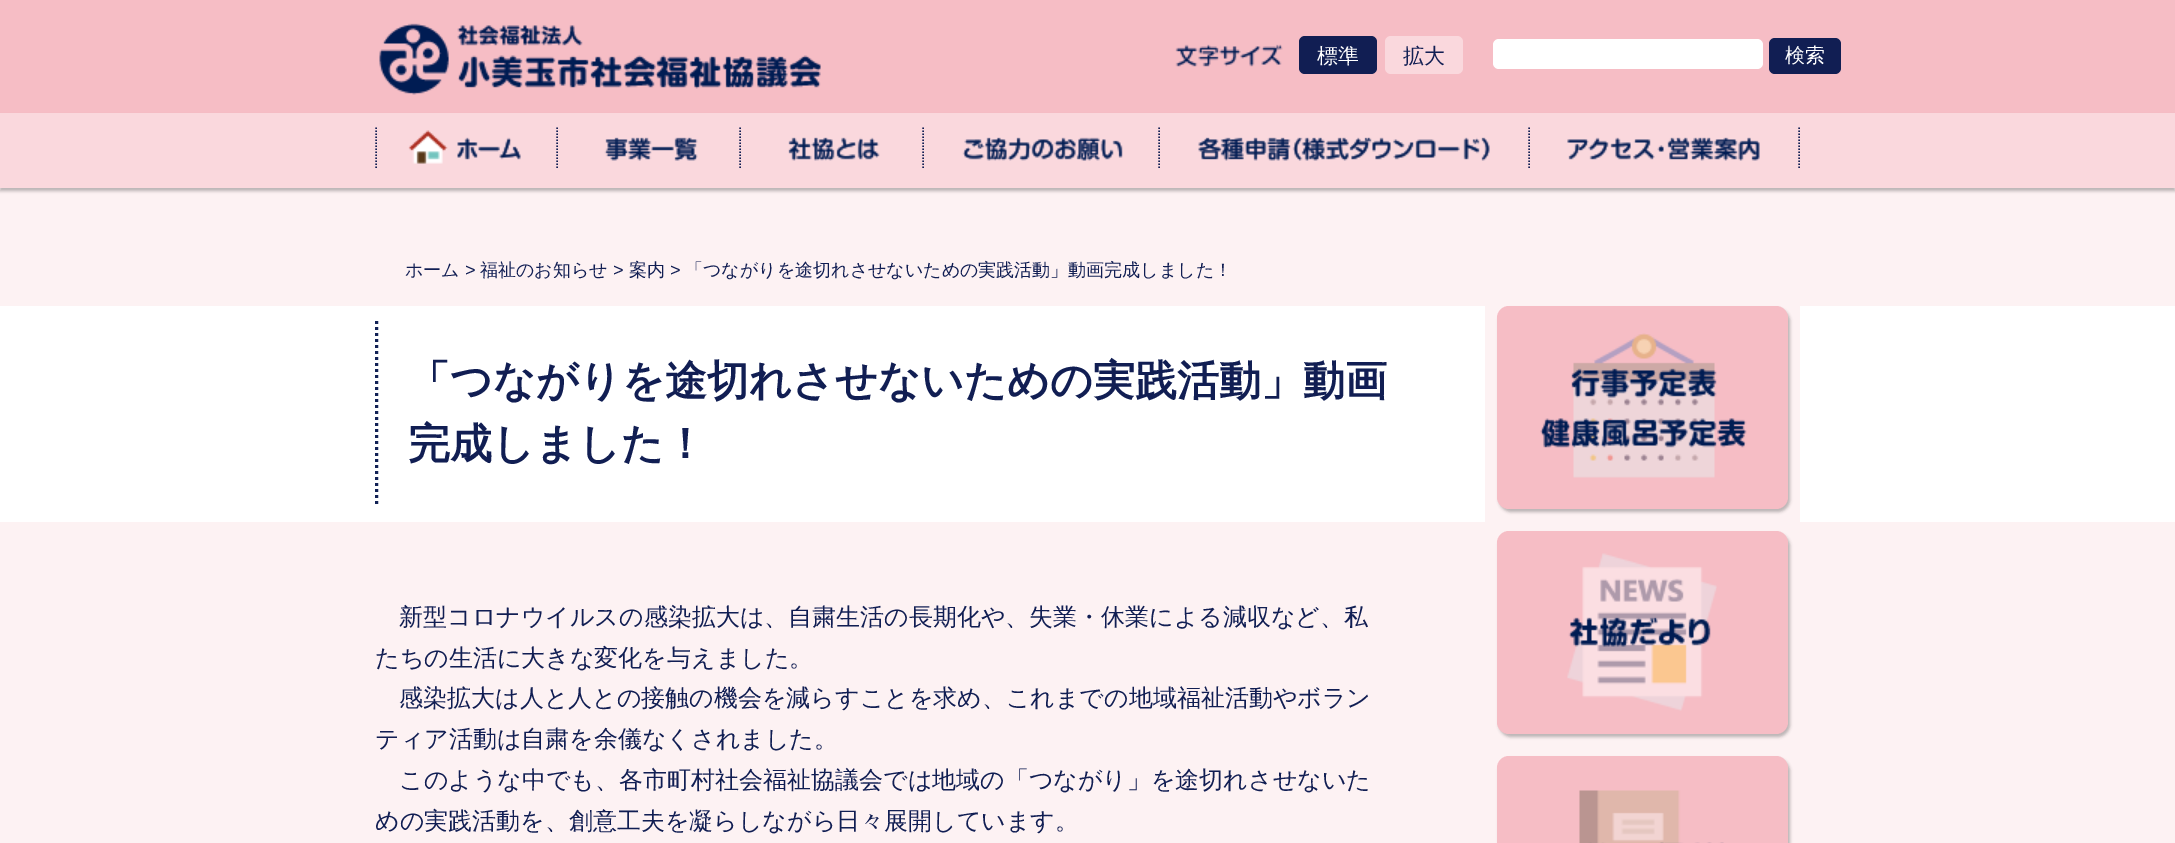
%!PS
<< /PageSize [2175 843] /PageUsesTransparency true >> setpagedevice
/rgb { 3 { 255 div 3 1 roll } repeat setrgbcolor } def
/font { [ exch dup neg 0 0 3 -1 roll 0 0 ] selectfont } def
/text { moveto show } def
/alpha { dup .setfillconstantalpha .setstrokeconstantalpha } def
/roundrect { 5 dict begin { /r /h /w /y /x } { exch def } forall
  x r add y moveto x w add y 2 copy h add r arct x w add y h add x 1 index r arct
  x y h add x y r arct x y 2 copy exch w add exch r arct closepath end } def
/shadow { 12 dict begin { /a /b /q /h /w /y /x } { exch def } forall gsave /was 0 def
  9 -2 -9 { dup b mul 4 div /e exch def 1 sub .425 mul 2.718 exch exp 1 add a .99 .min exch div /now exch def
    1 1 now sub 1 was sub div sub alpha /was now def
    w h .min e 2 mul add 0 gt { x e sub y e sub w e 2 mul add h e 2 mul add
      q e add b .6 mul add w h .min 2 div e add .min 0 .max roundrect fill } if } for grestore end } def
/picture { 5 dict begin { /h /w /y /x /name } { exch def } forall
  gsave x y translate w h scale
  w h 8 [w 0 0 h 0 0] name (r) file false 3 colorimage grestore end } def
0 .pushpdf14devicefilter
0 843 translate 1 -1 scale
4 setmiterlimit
246 189 197 rgb
0 0 2175 843 rectfill
(img_01.rgb) 379 23 442 72 picture
(img_02.rgb) 1175 44 108 23 picture
17 30 83 rgb
1299 36 78 38 6 roundrect fill
250 216 221 rgb
1385 36 78 38 6 roundrect fill
255 255 255 rgb
1493 39 270 30 6 roundrect fill
17 30 83 rgb
1769 38 72 36 6 roundrect fill
253 242 243 rgb
0 188 2175 118 rectfill
0 0 0 rgb
0 116 2175 75 0 1.5 0.25 shadow
250 216 221 rgb
0 113 2175 75 rectfill
(img_03.rgb) 408 130 113 34 picture
17 30 83 rgb
1.5 setlinewidth
[1.5 1.5] 0 setdash
557 127.5 moveto 0 42 rlineto stroke
376 127.5 moveto 0 42 rlineto stroke
(img_04.rgb) 604 137 94 24 picture
740 127.5 moveto 0 42 rlineto stroke
(img_05.rgb) 788 137 92 24 picture
923 127.5 moveto 0 42 rlineto stroke
(img_06.rgb) 962 137 161 24 picture
1159 127.5 moveto 0 42 rlineto stroke
(img_07.rgb) 1198 137 292 24 picture
1529 127.5 moveto 0 42 rlineto stroke
(img_08.rgb) 1567 137 193 24 picture
1799 127.5 moveto 0 42 rlineto stroke
255 255 255 rgb
0 306 2175 216 rectfill
253 242 243 rgb
0 522 2175 321 rectfill
17 33 85 rgb
3 setlinewidth
[3 3] 0 setdash
376.5 321 moveto 0 186 rlineto stroke
253 242 243 rgb
1485 306 315 216 rectfill
0 0 0 rgb
1499 309 291 203 12 1.5 0.25 shadow
246 189 197 rgb
1497 306 291 203 12 roundrect fill
(img_09.rgb) 1540 333 207 145 picture
0 0 0 rgb
1499 534 291 203 12 1.5 0.25 shadow
246 189 197 rgb
1497 531 291 203 12 roundrect fill
(img_10.rgb) 1567 553 150 158 picture
0 0 0 rgb
1499 759 291 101 12 1.5 0.25 shadow
246 189 197 rgb
1497 756 291 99 12 roundrect fill
(img_11.rgb) 1579 790 145 53 picture
/WenQuanYiZenHei-Medium 21 font
255 255 255 rgb
(標準) 1317 63 text
17 30 83 rgb
(拡大) 1403 63 text
/WenQuanYiZenHei-Medium 20 font
255 255 255 rgb
(検索) 1785 62 text
/WenQuanYiZenHei-Medium 18 font
17 30 83 rgb
(ホーム) 405 276 text
/LiberationSans-Regular 18 font
(>) 465 276 text
/WenQuanYiZenHei-Medium 18 font
(福祉のお知らせ) 480 276 text
/LiberationSans-Regular 18 font
(>) 613 276 text
/WenQuanYiZenHei-Medium 18 font
(案内) 629 276 text
/LiberationSans-Regular 18 font
(>) 670 276 text
/WenQuanYiZenHei-Medium 18 font
(「つながりを途切れさせないための実践活動」動画完成しました！) 685 276 text
/WenQuanYiZenHei-Bold 42 font
(「つながりを途切れさせないための実践活動」動画) 408 395 text
(完成しました！) 408 458 text
/WenQuanYiZenHei-Medium 24 font
(新型コロナウイルスの感染拡大は、自粛生活の長期化や、失業・休業による減収など、私) 399 625 text
(たちの生活に大きな変化を与えました。) 375 666 text
(感染拡大は人と人との接触の機会を減らすことを求め、これまでの地域福祉活動やボラン) 399 706 text
(ティア活動は自粛を余儀なくされました。) 375 747 text
(このような中でも、各市町村社会福祉協議会では地域の「つながり」を途切れさせないた) 399 788 text
(めの実践活動を、創意工夫を凝らしながら日々展開しています。) 375 829 text
.poppdf14devicefilter showpage
